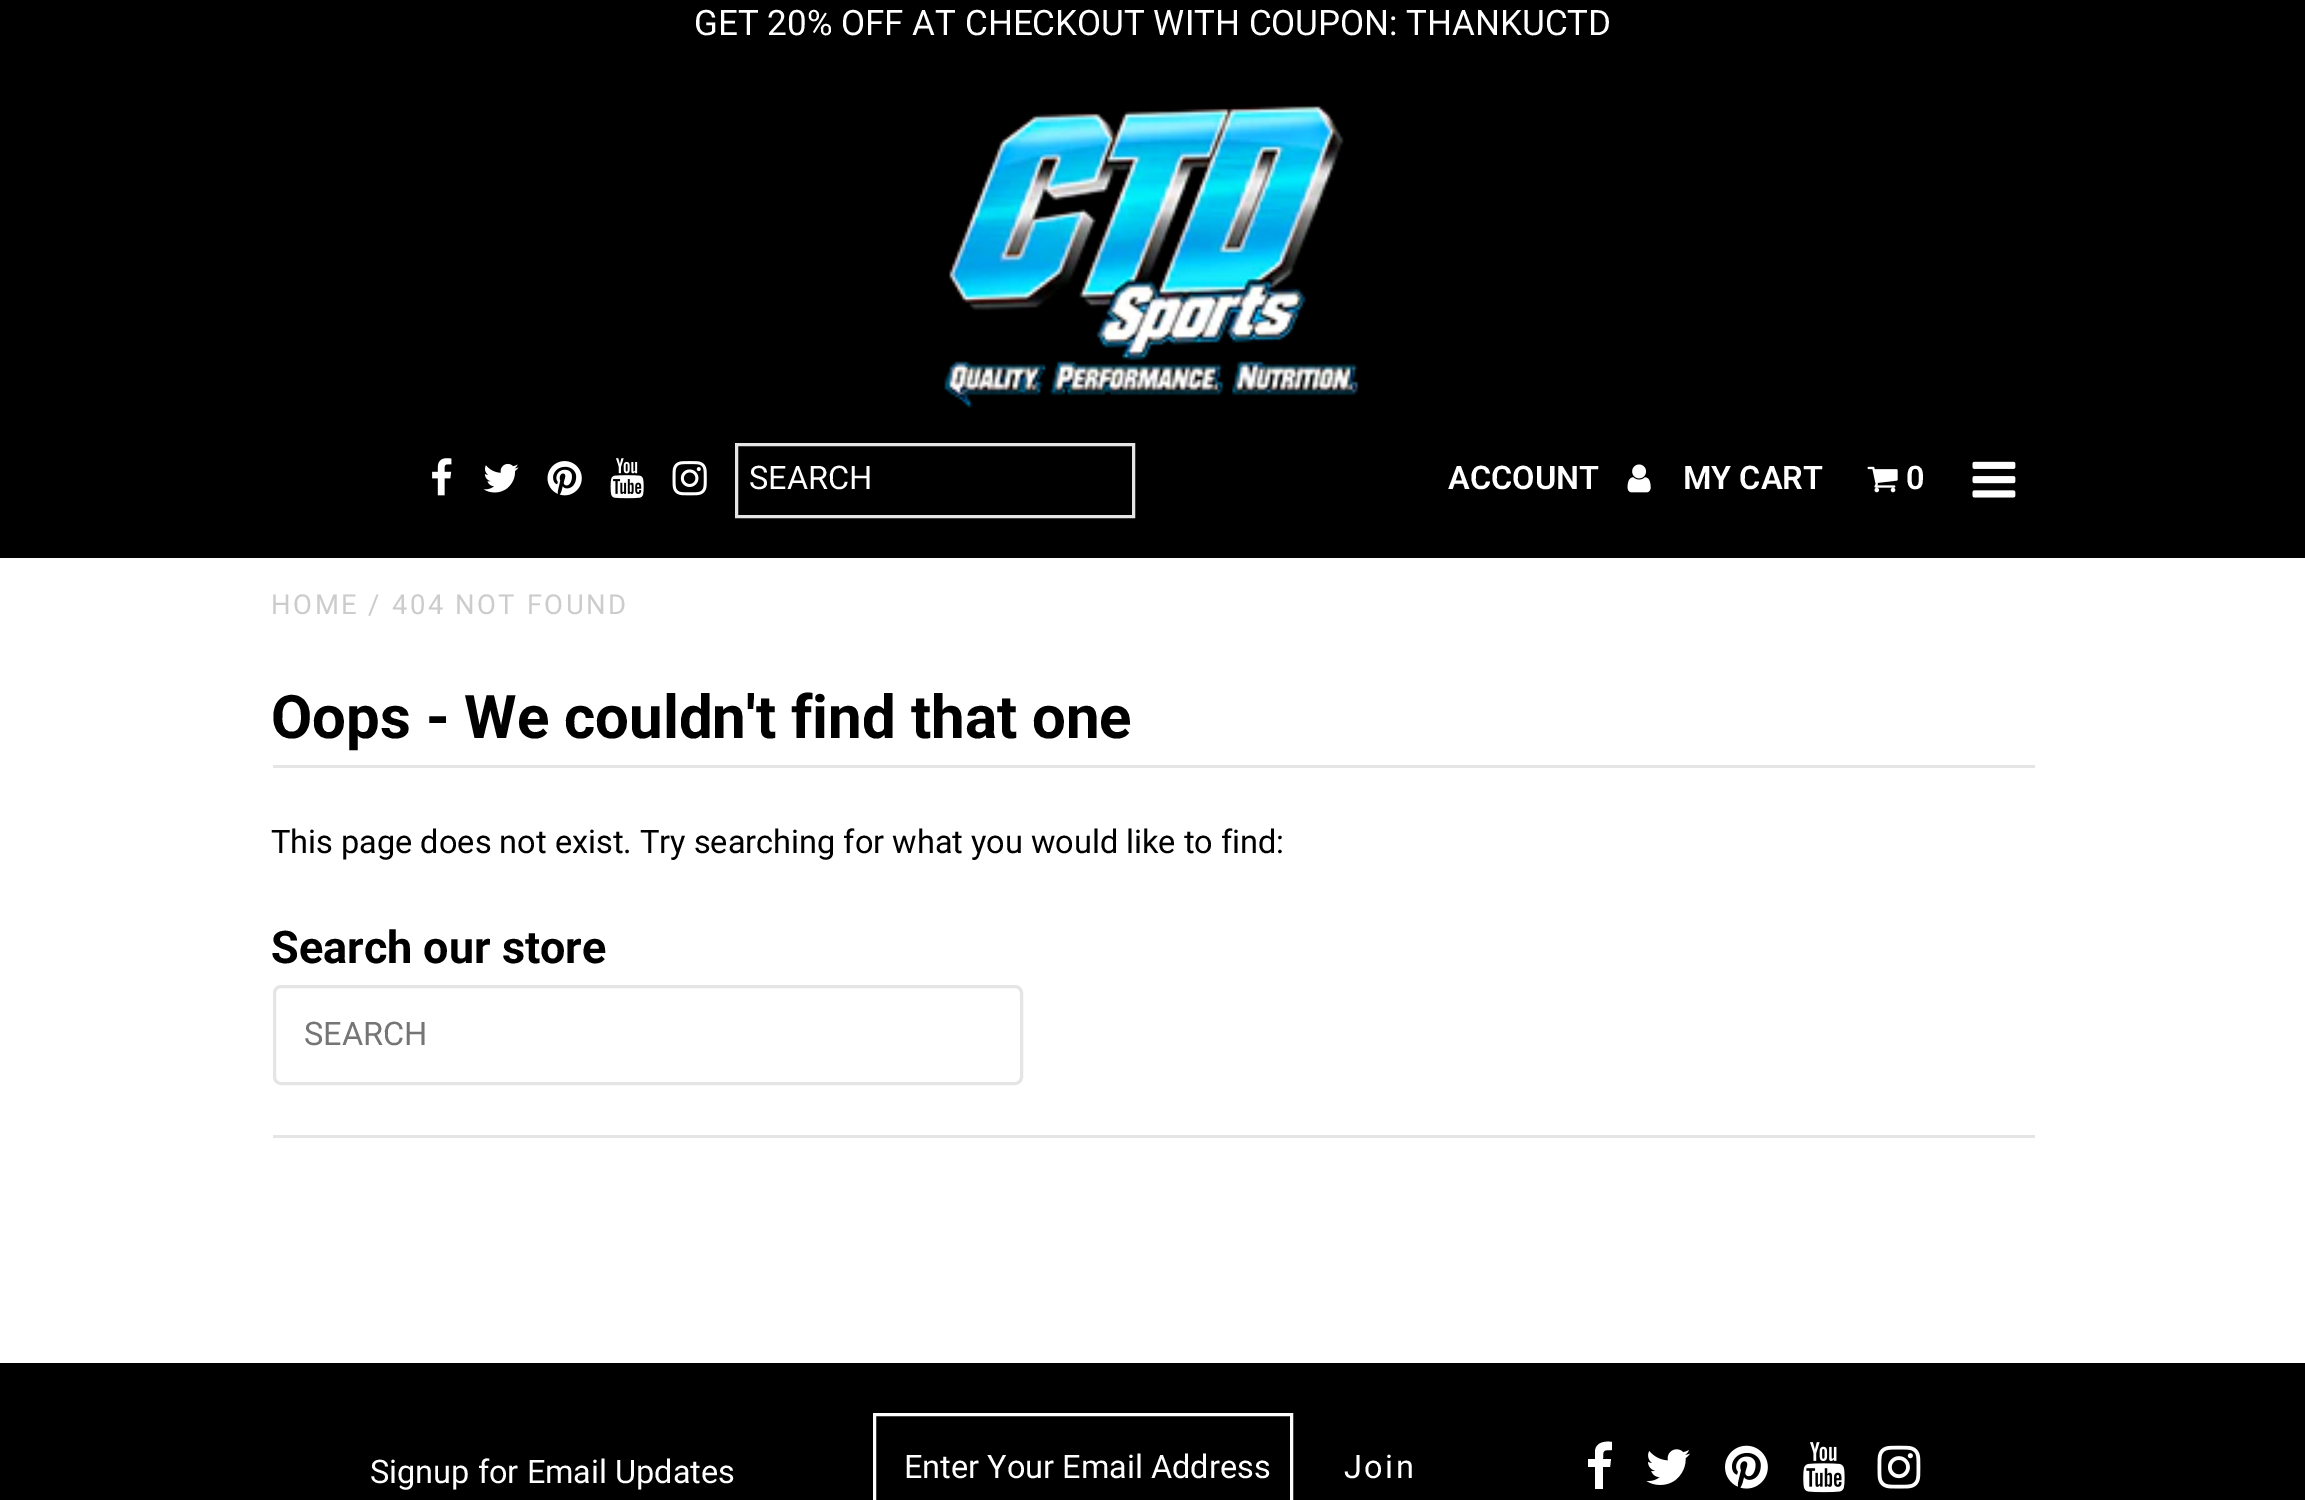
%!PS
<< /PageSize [2305 1500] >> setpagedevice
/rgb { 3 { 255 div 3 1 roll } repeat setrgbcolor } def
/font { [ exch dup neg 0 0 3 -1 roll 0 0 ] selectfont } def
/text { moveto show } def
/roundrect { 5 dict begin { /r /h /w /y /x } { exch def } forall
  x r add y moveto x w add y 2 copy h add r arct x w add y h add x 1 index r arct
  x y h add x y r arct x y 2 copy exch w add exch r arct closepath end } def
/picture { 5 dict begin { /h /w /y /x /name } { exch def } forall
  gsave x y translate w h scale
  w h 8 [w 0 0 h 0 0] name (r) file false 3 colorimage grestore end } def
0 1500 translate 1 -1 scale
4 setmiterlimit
255 255 255 rgb
0 0 2305 1500 rectfill
0 0 0 rgb
0 0 2305 558 rectfill
(img_01.rgb) 944 105 415 303 picture
(img_02.rgb) 432 458 20 38 picture
(img_03.rgb) 483 463 36 30 picture
(img_04.rgb) 547 461 35 35 picture
(img_05.rgb) 610 458 34 41 picture
(img_06.rgb) 672 461 35 35 picture
229 229 229 rgb
3 setlinewidth
736.5 444.5 397 72 rectstroke
(img_07.rgb) 1627 464 24 29 picture
(img_08.rgb) 1867 466 31 27 picture
(img_09.rgb) 1972 461 44 37 picture
273 765 1762 3 rectfill
273 1135 1762 3 rectfill
274.5 986.5 747 97 6.5 roundrect stroke
0 0 0 rgb
0 1363 2305 137 rectfill
255 255 255 rgb
874.5 1414.5 417 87 rectstroke
1612 1442 moveto 0 8 rlineto -9 0 -9 0 -9 9 rcurveto 8 0 rlineto -1 8 rlineto -7 0 rlineto 0 22 rlineto -8 0 rlineto 0 -22 rlineto -7 0 rlineto 0 -8 rlineto 7 0 rlineto 0 -8 rlineto 1 -9 10 -10 17 -9 rcurveto closepath fill
(img_10.rgb) 1646 1449 44 36 picture
(img_11.rgb) 1725 1445 43 44 picture
(img_12.rgb) 1803 1442 42 51 picture
(img_13.rgb) 1877 1445 44 44 picture
/Roboto-Regular 35 font
(GET 20% OFF AT CHECKOUT WITH COUPON: THANKUCTD) 694 35 text
/Roboto-Regular 32.5 font
(SEARCH) 749 489 text
/Roboto-SemiBold 32.5 font
(ACCOUNT) 1448 489 text
(MY CART) 1683 489 text
(0) 1906 489 text
/Roboto-Regular 27.5 font
204 204 204 rgb
271 614 moveto 2.5 0 (HOME / 404 NOT FOUND) ashow
/Roboto-Bold 60 font
0 0 0 rgb
(Oops - We couldn't find that one) 271 738 text
/Roboto-Regular 32.5 font
(This page does not exist. Try searching for what you would like to find:) 271 853 text
/Roboto-Bold 45 font
(Search our store) 271 963 text
/Roboto-Regular 32.5 font
117 117 117 rgb
(SEARCH) 304 1045 text
255 255 255 rgb
(Signup for Email Updates) 370 1483 text
(Enter Your Email Address) 904 1478 text
1344 1478 moveto 2.5 0 (Join) ashow
showpage
